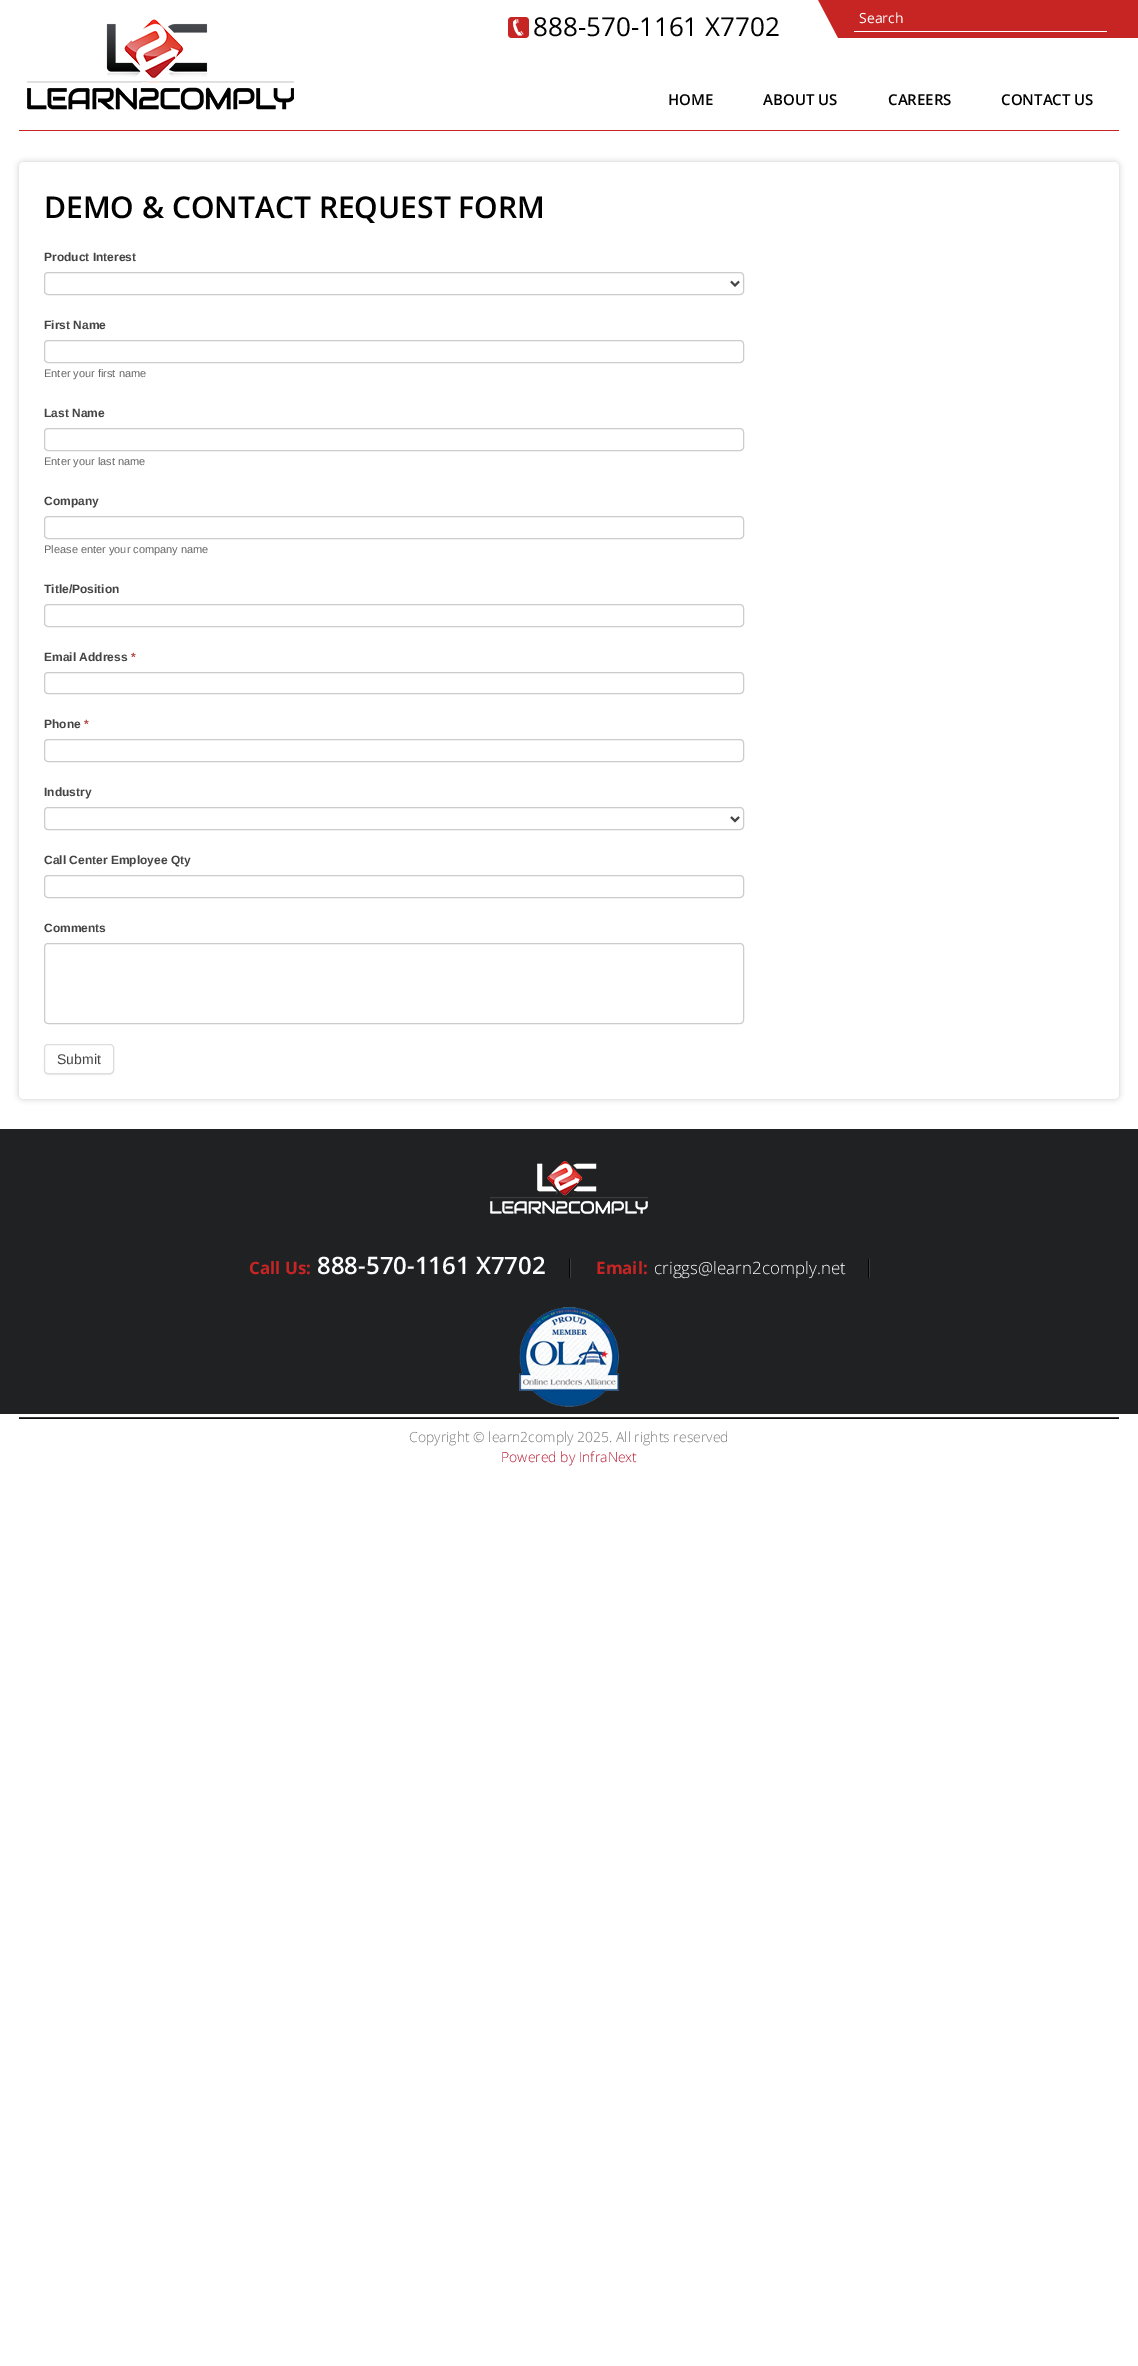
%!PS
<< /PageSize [1138 2366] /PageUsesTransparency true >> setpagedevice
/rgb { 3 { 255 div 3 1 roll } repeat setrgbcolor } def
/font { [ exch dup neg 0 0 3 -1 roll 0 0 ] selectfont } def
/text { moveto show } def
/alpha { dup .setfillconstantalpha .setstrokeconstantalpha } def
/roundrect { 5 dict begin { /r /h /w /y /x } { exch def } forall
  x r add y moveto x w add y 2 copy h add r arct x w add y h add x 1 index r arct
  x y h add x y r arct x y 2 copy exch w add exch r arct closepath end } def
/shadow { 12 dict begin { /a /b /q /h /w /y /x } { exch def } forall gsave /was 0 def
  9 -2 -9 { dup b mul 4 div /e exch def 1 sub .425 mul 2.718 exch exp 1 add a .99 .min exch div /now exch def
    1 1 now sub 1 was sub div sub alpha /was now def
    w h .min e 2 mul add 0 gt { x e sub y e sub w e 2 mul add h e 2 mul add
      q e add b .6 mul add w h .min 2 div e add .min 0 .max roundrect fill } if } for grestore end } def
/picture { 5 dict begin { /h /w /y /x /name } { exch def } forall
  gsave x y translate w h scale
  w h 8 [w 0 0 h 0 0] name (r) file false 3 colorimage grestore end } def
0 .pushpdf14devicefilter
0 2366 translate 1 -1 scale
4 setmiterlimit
255 255 255 rgb
0 0 1138 2366 rectfill
199 36 36 rgb
19 130 1100 1 rectfill
(img_01.rgb) 27 19 267 91 picture
(img_02.rgb) 508 17 21 21 picture
(img_03.rgb) 818 0 301 38 picture
255 255 255 rgb
854 31 253 1 rectfill
199 36 36 rgb
1119 0 19 38 rectfill
24 24 25 rgb
19 162 1100 937 5 3 0.24 shadow
255 255 255 rgb
19 162 1100 937 5 roundrect fill
204 204 204 rgb
44.5 272.5 699 22 3.5 roundrect stroke
68 68 68 rgb
2 setlinewidth
731 281.5 moveto 4 4 rlineto 4 -4 rlineto stroke
204 204 204 rgb
1 setlinewidth
44.5 340.5 699 22 3.5 roundrect stroke
44.5 428.5 699 22 3.5 roundrect stroke
44.5 516.5 699 22 3.5 roundrect stroke
44.5 604.5 699 22 3.5 roundrect stroke
44.5 672.5 699 21 3.5 roundrect stroke
44.5 739.5 699 22 3.5 roundrect stroke
44.5 807.5 699 22 3.5 roundrect stroke
68 68 68 rgb
2 setlinewidth
731 817 moveto 4 4 rlineto 4 -4 rlineto stroke
204 204 204 rgb
1 setlinewidth
44.5 875.5 699 22 3.5 roundrect stroke
44.5 943.5 699 80 3.5 roundrect stroke
238 238 238 rgb
44 1045 70 30 4 0.5 1 shadow
255 255 255 rgb
44.5 1044.5 69 29 3.5 roundrect gsave fill grestore
221 221 221 rgb
stroke
31 33 34 rgb
0 1129 1138 285 rectfill
(img_04.rgb) 490 1161 158 53 picture
(img_05.rgb) 569 1259 2 19 picture
(img_05.rgb) 868 1259 2 19 picture
(img_06.rgb) 519 1307 100 100 picture
(img_07.rgb) 19 1417 1100 2 picture
/OpenSans-Regular 26 font
0 0 0 rgb
(888-570-1161 X7702) 533 36 text
/OpenSans-Regular 14 font
255 255 255 rgb
(Search) 859 23 text
/OpenSans-SemiBold 15 font
0 0 0 rgb
(HOME) 668 105 text
(ABOUT US) 763 105 text
(CAREERS) 888 105 text
(CONTACT US) 1001 105 text
/OpenSans-SemiBold 30 font
(DEMO & CONTACT REQUEST FORM) 44 218 text
/LiberationSans-Bold 12 font
68 68 68 rgb
(Product Interest) 44 261 text
(First Name) 44 329 text
/LiberationSans-Regular 11 font
102 102 102 rgb
(Enter your first name) 44 377 text
/LiberationSans-Bold 12 font
68 68 68 rgb
(Last Name) 44 417 text
/LiberationSans-Regular 11 font
102 102 102 rgb
(Enter your last name) 44 465 text
/LiberationSans-Bold 12 font
68 68 68 rgb
(Company) 44 505 text
/LiberationSans-Regular 11 font
102 102 102 rgb
(Please enter your company name) 44 553 text
/LiberationSans-Bold 12 font
68 68 68 rgb
(Title/Position) 44 593 text
(Email Address) 44 661 text
185 74 72 rgb
(*) 131 661 text
68 68 68 rgb
(Phone) 44 728 text
185 74 72 rgb
(*) 84 728 text
68 68 68 rgb
(Industry) 44 796 text
(Call Center Employee Qty) 44 864 text
(Comments) 44 932 text
/LiberationSans-Regular 14 font
(Submit) 57 1064 text
/OpenSans-Bold 17 font
199 36 36 rgb
(Call Us:) 249 1274 text
/OpenSans-SemiBold 24 font
255 255 255 rgb
(888-570-1161 X7702) 317 1274 text
/OpenSans-Bold 17 font
199 36 36 rgb
(Email:) 596 1274 text
/OpenSans-Light 17 font
255 255 255 rgb
(criggs@learn2comply.net) 654 1274 text
/OpenSans-Light 14 font
123 123 123 rgb
(Copyright © learn2comply 2025. All rights reserved) 409 1442 text
184 26 51 rgb
(Powered by InfraNext) 501 1462 text
.poppdf14devicefilter showpage
